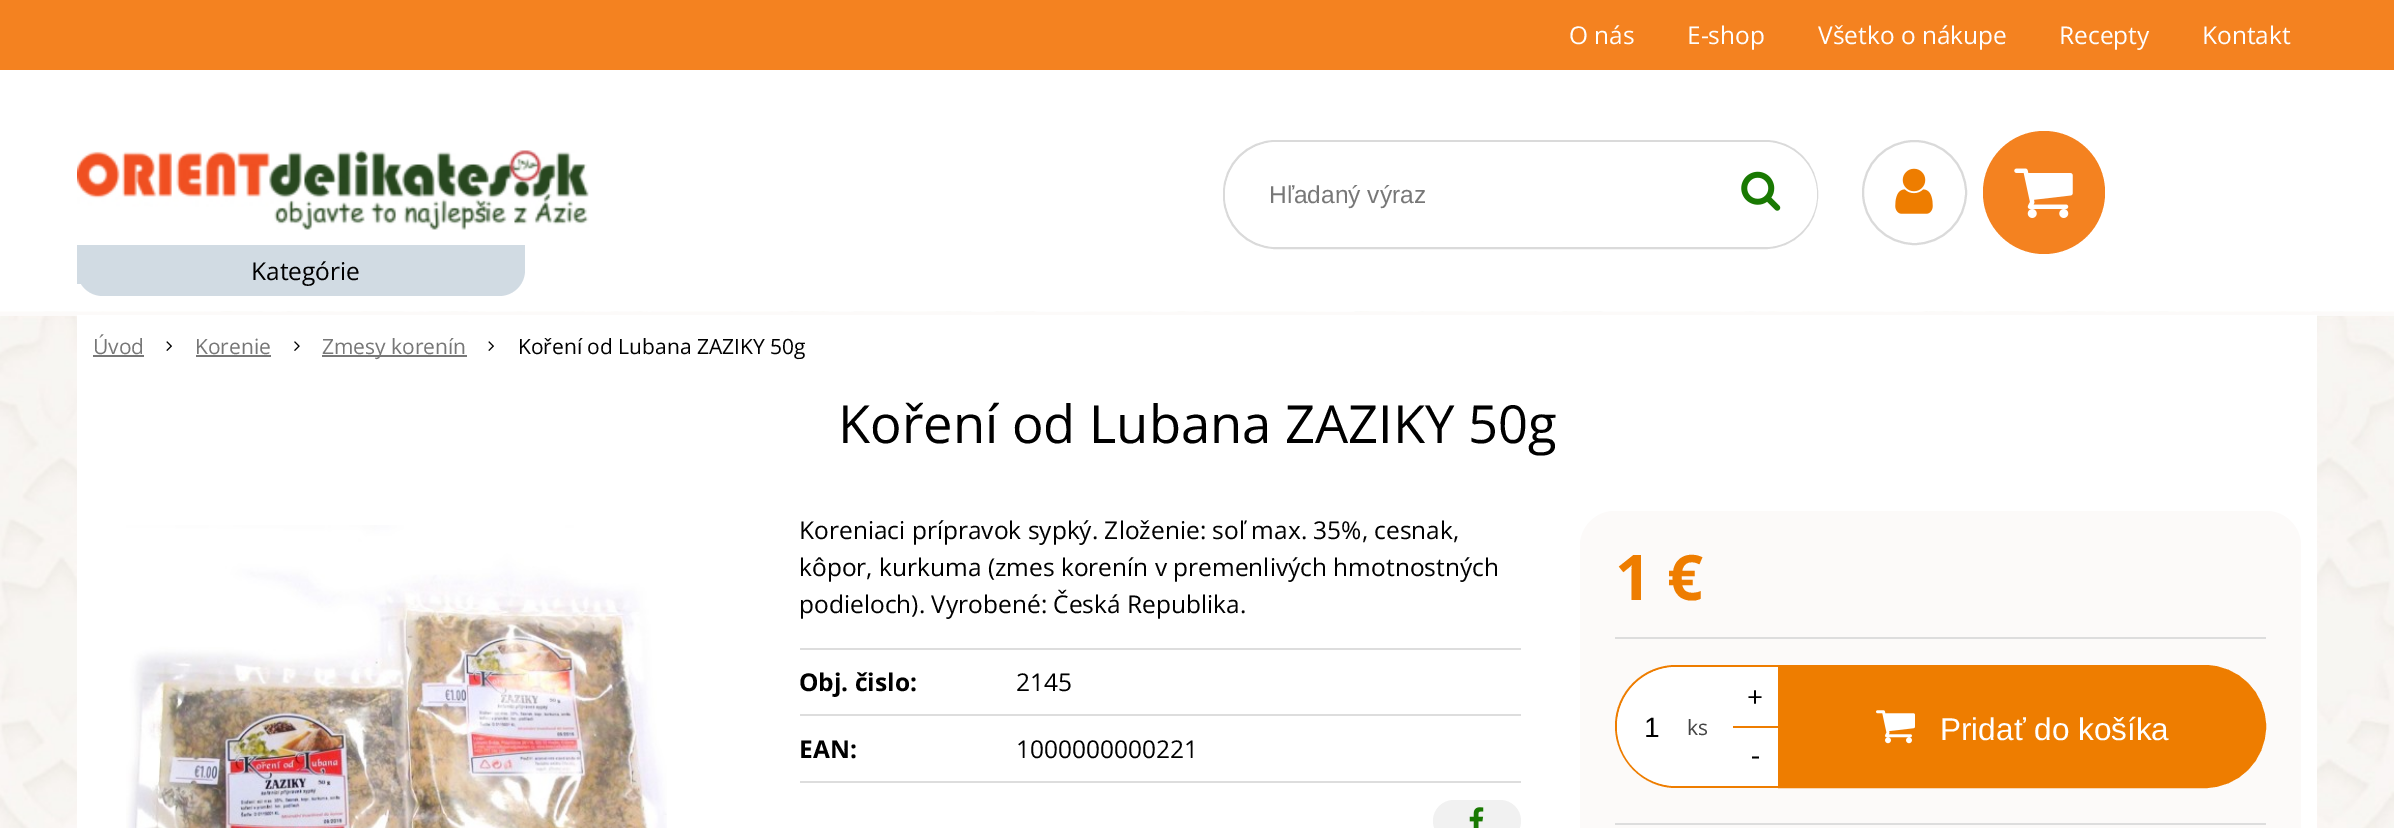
%!PS
<< /PageSize [2394 828] >> setpagedevice
/rgb { 3 { 255 div 3 1 roll } repeat setrgbcolor } def
/font { [ exch dup neg 0 0 3 -1 roll 0 0 ] selectfont } def
/text { moveto show } def
/circle { newpath 0 360 arc closepath } def
/roundrect { 5 dict begin { /r /h /w /y /x } { exch def } forall
  x r add y moveto x w add y 2 copy h add r arct x w add y h add x 1 index r arct
  x y h add x y r arct x y 2 copy exch w add exch r arct closepath end } def
/picture { 5 dict begin { /h /w /y /x /name } { exch def } forall
  gsave x y translate w h scale
  w h 8 [w 0 0 h 0 0] name (r) file false 3 colorimage grestore end } def
0 828 translate 1 -1 scale
4 setmiterlimit
255 255 255 rgb
0 0 2394 828 rectfill
(img_01.rgb) 0 311 2394 517 picture
252 250 249 rgb
0 312 2394 4 rectfill
244 130 32 rgb
0 0 2394 70 rectfill
(img_02.rgb) 77 150 512 80 picture
218 218 218 rgb
2 setlinewidth
1224 141 593 107 52 roundrect stroke
255 255 255 rgb
1225 142 592 105 52.5 roundrect fill
(img_03.rgb) 1741 171 40 40 picture
218 218 218 rgb
1914.5 192.5 51.5 circle stroke
(img_04.rgb) 1895 168 38 46 picture
244 130 32 rgb
1983 131 122 123 61 roundrect fill
(img_05.rgb) 2014 168 59 50 picture
255 255 255 rgb
77 315 2240 513 rectfill
209 219 227 rgb
77 245 moveto 448 0 rlineto 0 25 rlineto 0 14.5 -11.5 26 -26 26 rcurveto -396 0 rlineto -14.5 0 -26 -11.5 -26 -26 rcurveto closepath fill
77 271 4 13 rectfill
119 119 119 rgb
93 355 51 2 rectfill
(img_06.rgb) 166 341 6 10 picture
196 355 75 2 rectfill
(img_07.rgb) 294 341 6 10 picture
322 355 145 2 rectfill
(img_06.rgb) 488 341 6 10 picture
(img_08.rgb) 126 525 541 303 picture
221 221 221 rgb
800 781 721 2 rectfill
800 648 721 2 rectfill
800 714 721 2 rectfill
241 241 241 rgb
1433 800 88 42 21 roundrect fill
(img_09.rgb) 1469 807 15 21 picture
252 250 249 rgb
1580 511 721 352 35 roundrect fill
221 221 221 rgb
1615 637 651 2 rectfill
255 255 255 rgb
1676.5 667 moveto 101.5 0 rlineto 0 119 rlineto -101.5 0 rlineto -33 0 -59.5 -26.5 -59.5 -59.5 rcurveto 0 -33 26.5 -59.5 59.5 -59.5 rcurveto closepath fill
238 125 0 rgb
1676 665 moveto 102 0 rlineto 0 123 rlineto -102 0 rlineto -33 0 -61 -28 -61 -62 rcurveto 0 -34 28 -61 61 -61 rcurveto closepath 1676 667 moveto 102 0 rlineto 0 119 rlineto -102 0 rlineto -32 0 -59 -27 -59 -60 rcurveto 0 -33 27 -59 59 -59 rcurveto closepath eofill
1733 726 45 2 rectfill
255 255 255 rgb
1676.5 667 moveto 10.5 0 rlineto 0 119 rlineto -10.5 0 rlineto -33 0 -59.5 -26.5 -59.5 -59.5 rcurveto 0 -33 26.5 -59.5 59.5 -59.5 rcurveto closepath fill
238 125 0 rgb
1779 666 moveto 425.5 0 rlineto 33.5 0 60.5 27 60.5 60.5 rcurveto 0 33.5 -27 60.5 -60.5 60.5 rcurveto -425.5 0 rlineto closepath gsave fill grestore
stroke
(img_10.rgb) 1876 710 39 34 picture
221 221 221 rgb
1615 823 651 2 rectfill
/OpenSans-Regular 24.5 font
255 255 255 rgb
(O nás) 1569 44 text
(E-shop) 1687 44 text
(Všetko o nákupe) 1818 44 text
(Recepty) 2059 44 text
(Kontakt) 2202 44 text
/LiberationSans-Regular 24.5 font
119 119 119 rgb
(Hľadaný výraz) 1269 203 text
/OpenSans-Regular 24.5 font
0 0 0 rgb
(Kategórie) 251 280 text
/OpenSans-Regular 21 font
119 119 119 rgb
(Úvod) 93 354 text
(Korenie) 195 354 text
(Zmesy korenín) 322 354 text
0 0 0 rgb
(Koření od Lubana ZAZIKY 50g) 518 354 text
/OpenSans-Regular 52.5 font
(Koření od Lubana ZAZIKY 50g) 838 443 text
/OpenSans-Regular 24.5 font
(Koreniaci prípravok sypký. Zloženie: soľ max. 35%, cesnak,) 799 539 text
(kôpor, kurkuma \(zmes korenín v premenlivých hmotnostných) 799 576 text
(podieloch\). Vyrobené: Česká Republika.) 799 613 text
/OpenSans-Bold 24.5 font
(Obj. čislo:) 799 691 text
/OpenSans-Regular 24.5 font
(2145) 1016 691 text
/OpenSans-Bold 24.5 font
(EAN:) 799 758 text
/OpenSans-Regular 24.5 font
(1000000000221) 1016 758 text
/OpenSans-Bold 63 font
238 125 0 rgb
(1 €) 1615 600 text
/OpenSans-Regular 28 font
0 0 0 rgb
(+) 1747 707 text
/LiberationSans-Regular 28 font
(1) 1644 737 text
/OpenSans-Regular 21 font
68 68 68 rgb
(ks) 1687 735 text
/OpenSans-Regular 28 font
0 0 0 rgb
(-) 1751 765 text
/LiberationSans-Regular 31.5 font
255 255 255 rgb
(Pridať do košíka) 1940 740 text
showpage
